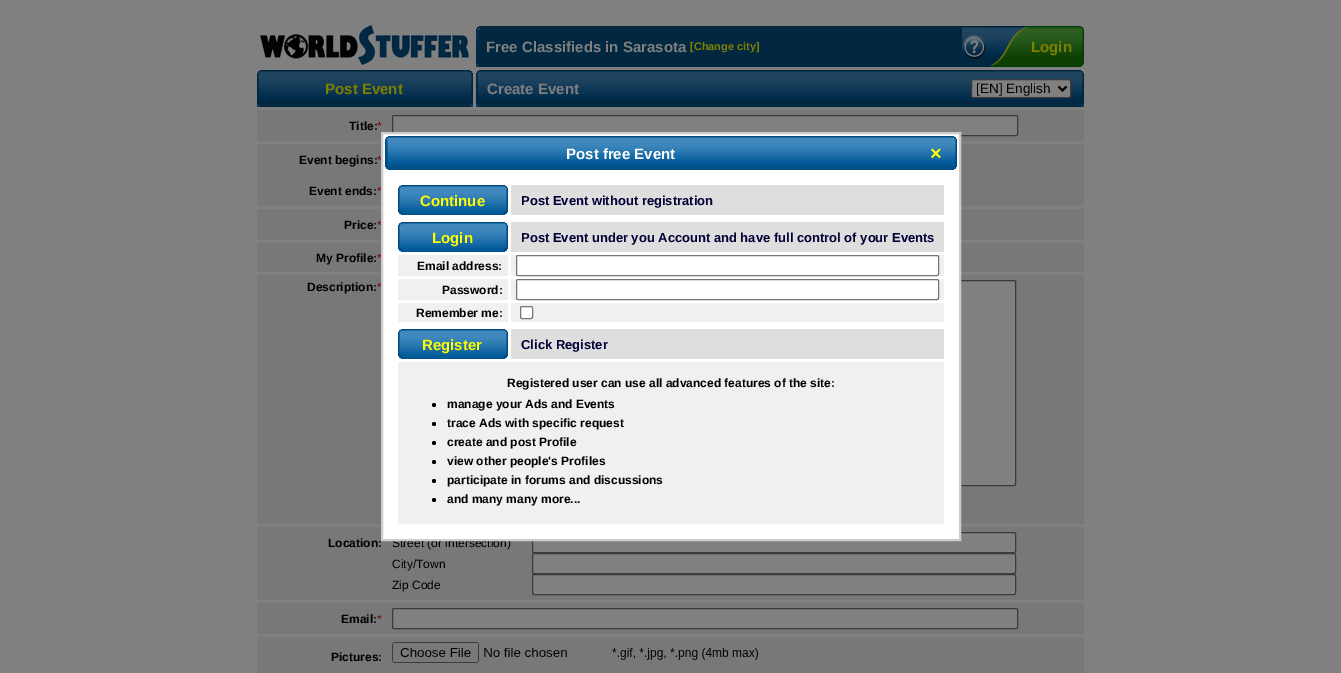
%!PS
<< /PageSize [1341 673] >> setpagedevice
/rgb { 3 { 255 div 3 1 roll } repeat setrgbcolor } def
/font { [ exch dup neg 0 0 3 -1 roll 0 0 ] selectfont } def
/text { moveto show } def
/circle { newpath 0 360 arc closepath } def
/roundrect { 5 dict begin { /r /h /w /y /x } { exch def } forall
  x r add y moveto x w add y 2 copy h add r arct x w add y h add x 1 index r arct
  x y h add x y r arct x y 2 copy exch w add exch r arct closepath end } def
/picture { 5 dict begin { /h /w /y /x /name } { exch def } forall
  gsave x y translate w h scale
  w h 8 [w 0 0 h 0 0] name (r) file false 3 colorimage grestore end } def
0 673 translate 1 -1 scale
4 setmiterlimit
128 128 128 rgb
0 0 1341 673 rectfill
(img_01.rgb) 260 25 209 40 picture
2 39 65 rgb
476 26 511 41 rectfill
(img_02.rgb) 476 26 4 4 picture
(img_03.rgb) 477 32 1 31 picture
18 54 81 rgb
476 64 3 3 rectfill
(img_04.rgb) 962 27 25 31 picture
(img_05.rgb) 962 35 24 24 picture
(img_06.rgb) 987 26 44 41 picture
(img_07.rgb) 1031 26 49 41 picture
(img_08.rgb) 1080 26 2 41 picture
(img_09.rgb) 1081 26 3 4 picture
(img_10.rgb) 1082 30 2 33 picture
(img_11.rgb) 1081 63 3 4 picture
2 39 65 rgb
257 70 216 37 rectfill
(img_12.rgb) 259 71 212 31 picture
(img_13.rgb) 257 70 3 4 picture
(img_14.rgb) 257 74 2 28 picture
18 54 81 rgb
257 104 3 3 rectfill
(img_15.rgb) 470 70 3 4 picture
(img_16.rgb) 471 74 2 28 picture
470 104 3 3 rectfill
2 39 65 rgb
476 70 608 37 rectfill
(img_17.rgb) 478 71 604 31 picture
(img_13.rgb) 476 70 3 4 picture
(img_14.rgb) 476 74 2 28 picture
18 54 81 rgb
476 104 3 3 rectfill
128 128 128 rgb
971.5 79.5 99 18 1.5 roundrect gsave fill grestore
59 59 59 rgb
stroke
0 0 0 rgb
2 setlinewidth
1058.5 86.5 moveto 4 4 rlineto 4 -4 rlineto stroke
(img_15.rgb) 1081 70 3 4 picture
(img_16.rgb) 1082 74 2 28 picture
18 54 81 rgb
1081 104 3 3 rectfill
120 120 120 rgb
257 110 827 31 rectfill
128 128 128 rgb
392.5 115.5 625 20 1.5 roundrect gsave fill grestore
59 59 59 rgb
1 setlinewidth
stroke
120 120 120 rgb
257 144 827 62 rectfill
257 209 827 31 rectfill
257 243 827 29 rectfill
257 275 827 249 rectfill
128 128 128 rgb
392.5 280.5 623 205 1.5 roundrect gsave fill grestore
59 59 59 rgb
stroke
120 120 120 rgb
257 527 827 73 rectfill
128 128 128 rgb
532.5 532.5 483 20 1.5 roundrect gsave fill grestore
59 59 59 rgb
stroke
128 128 128 rgb
532.5 553.5 483 20 1.5 roundrect gsave fill grestore
59 59 59 rgb
stroke
128 128 128 rgb
532.5 574.5 483 20 1.5 roundrect gsave fill grestore
59 59 59 rgb
stroke
120 120 120 rgb
257 603 827 31 rectfill
128 128 128 rgb
392.5 608.5 625 20 1.5 roundrect gsave fill grestore
59 59 59 rgb
stroke
120 120 120 rgb
257 637 827 36 rectfill
(img_18.rgb) 392 642 366 21 picture
/LiberationSans-Bold 15 font
128 128 128 rgb
(Free Classifieds in Sarasota) 486 52 text
/LiberationSans-Bold 11 font
128 128 0 rgb
([Change city]) 690 50 text
/LiberationSans-Bold 15 font
(Login) 1031 52 text
(Post Event) 325 94 text
128 128 128 rgb
(Create Event) 487 94 text
/LiberationSans-Regular 13.5 font
0 0 0 rgb
([EN] English) 976 93 text
/LiberationSans-Bold 12 font
(Title:) 349 130 text
/LiberationSans-Regular 12 font
128 0 0 rgb
(*) 377 130 text
/LiberationSans-Bold 12 font
0 0 0 rgb
(Event begins:) 299 164 text
/LiberationSans-Regular 12 font
128 0 0 rgb
(*) 377 164 text
/LiberationSans-Bold 12 font
0 0 0 rgb
(Event ends:) 309 195 text
/LiberationSans-Regular 12 font
128 0 0 rgb
(*) 377 195 text
/LiberationSans-Bold 12 font
0 0 0 rgb
(Price:) 344 229 text
/LiberationSans-Regular 12 font
128 0 0 rgb
(*) 377 229 text
/LiberationSans-Bold 12 font
0 0 0 rgb
(My Profile:) 316 262 text
/LiberationSans-Regular 12 font
128 0 0 rgb
(*) 377 262 text
/LiberationSans-Bold 12 font
0 0 0 rgb
(Description:) 307 291 text
/LiberationSans-Regular 12 font
128 0 0 rgb
(*) 377 291 text
/LiberationSans-Bold 12 font
0 0 0 rgb
(Location:) 328 547 text
/LiberationSans-Regular 12 font
(Street \(or intersection\)) 392 547 text
(City/Town) 392 568 text
(Zip Code) 392 589 text
/LiberationSans-Bold 12 font
(Email:) 341 623 text
/LiberationSans-Regular 12 font
128 0 0 rgb
(*) 377 623 text
/LiberationSans-Bold 12 font
0 0 0 rgb
(Pictures:) 331 661 text
255 255 255 rgb
382 133 moveto 578 0 rlineto 0 407 rlineto -578 0 rlineto closepath gsave fill grestore
204 204 204 rgb
2 setlinewidth
stroke
4 77 130 rgb
388 136 566 34 rectfill
(img_19.rgb) 388 137 567 31 picture
(img_20.rgb) 385 136 3 4 picture
(img_21.rgb) 385 140 3 26 picture
(img_22.rgb) 385 166 4 4 picture
/LiberationSans-Bold 15 font
255 255 255 rgb
(Post free Event) 566 159 text
/LiberationSans-Bold 20 font
255 255 0 rgb
(×) 930 160 text
(img_23.rgb) 954 136 3 4 picture
(img_24.rgb) 955 140 2 26 picture
(img_25.rgb) 953 166 4 4 picture
(img_26.rgb) 398 185 110 30 picture
/LiberationSans-Bold 15 font
(Continue) 420 206 text
222 222 222 rgb
511 185 433 30 rectfill
/LiberationSans-Bold 13 font
1 0 53 rgb
(Post Event without registration) 521 205 text
(img_26.rgb) 398 222 110 30 picture
/LiberationSans-Bold 15 font
255 255 0 rgb
(Login) 432 243 text
222 222 222 rgb
511 222 433 30 rectfill
/LiberationSans-Bold 13 font
1 0 53 rgb
(Post Event under you Account and have full control of your Events) 521 242 text
240 240 240 rgb
398 255 110 21 rectfill
/LiberationSans-Bold 12 font
0 0 0 rgb
(Email address:) 417 270 text
240 240 240 rgb
511 255 433 21 rectfill
255 255 255 rgb
516.5 255.5 422 20 1.5 roundrect gsave fill grestore
118 118 118 rgb
1 setlinewidth
stroke
240 240 240 rgb
398 279 110 21 rectfill
0 0 0 rgb
(Password:) 442 294 text
240 240 240 rgb
511 279 433 21 rectfill
255 255 255 rgb
516.5 279.5 422 20 1.5 roundrect gsave fill grestore
118 118 118 rgb
stroke
240 240 240 rgb
398 303 110 19 rectfill
0 0 0 rgb
(Remember me:) 416 317 text
240 240 240 rgb
511 303 433 19 rectfill
255 255 255 rgb
520.5 306.5 12 12 1.5 roundrect gsave fill grestore
118 118 118 rgb
stroke
(img_26.rgb) 398 329 110 30 picture
/LiberationSans-Bold 15 font
255 255 0 rgb
(Register) 422 350 text
222 222 222 rgb
511 329 433 30 rectfill
/LiberationSans-Bold 13 font
1 0 53 rgb
(Click Register) 521 349 text
240 240 240 rgb
398 362 546 162 rectfill
/LiberationSans-Bold 12 font
0 0 0 rgb
(Registered user can use all advanced features of the site:) 507 387 text
434 405 2 circle fill
(manage your Ads and Events) 447 408 text
434 424 2 circle fill
(trace Ads with specific request) 447 427 text
434 443 2 circle fill
(create and post Profile) 447 446 text
434 462 2 circle fill
(view other people's Profiles) 447 465 text
434 481 2 circle fill
(participate in forums and discussions) 447 484 text
434 500 2 circle fill
(and many many more...) 447 503 text
showpage
